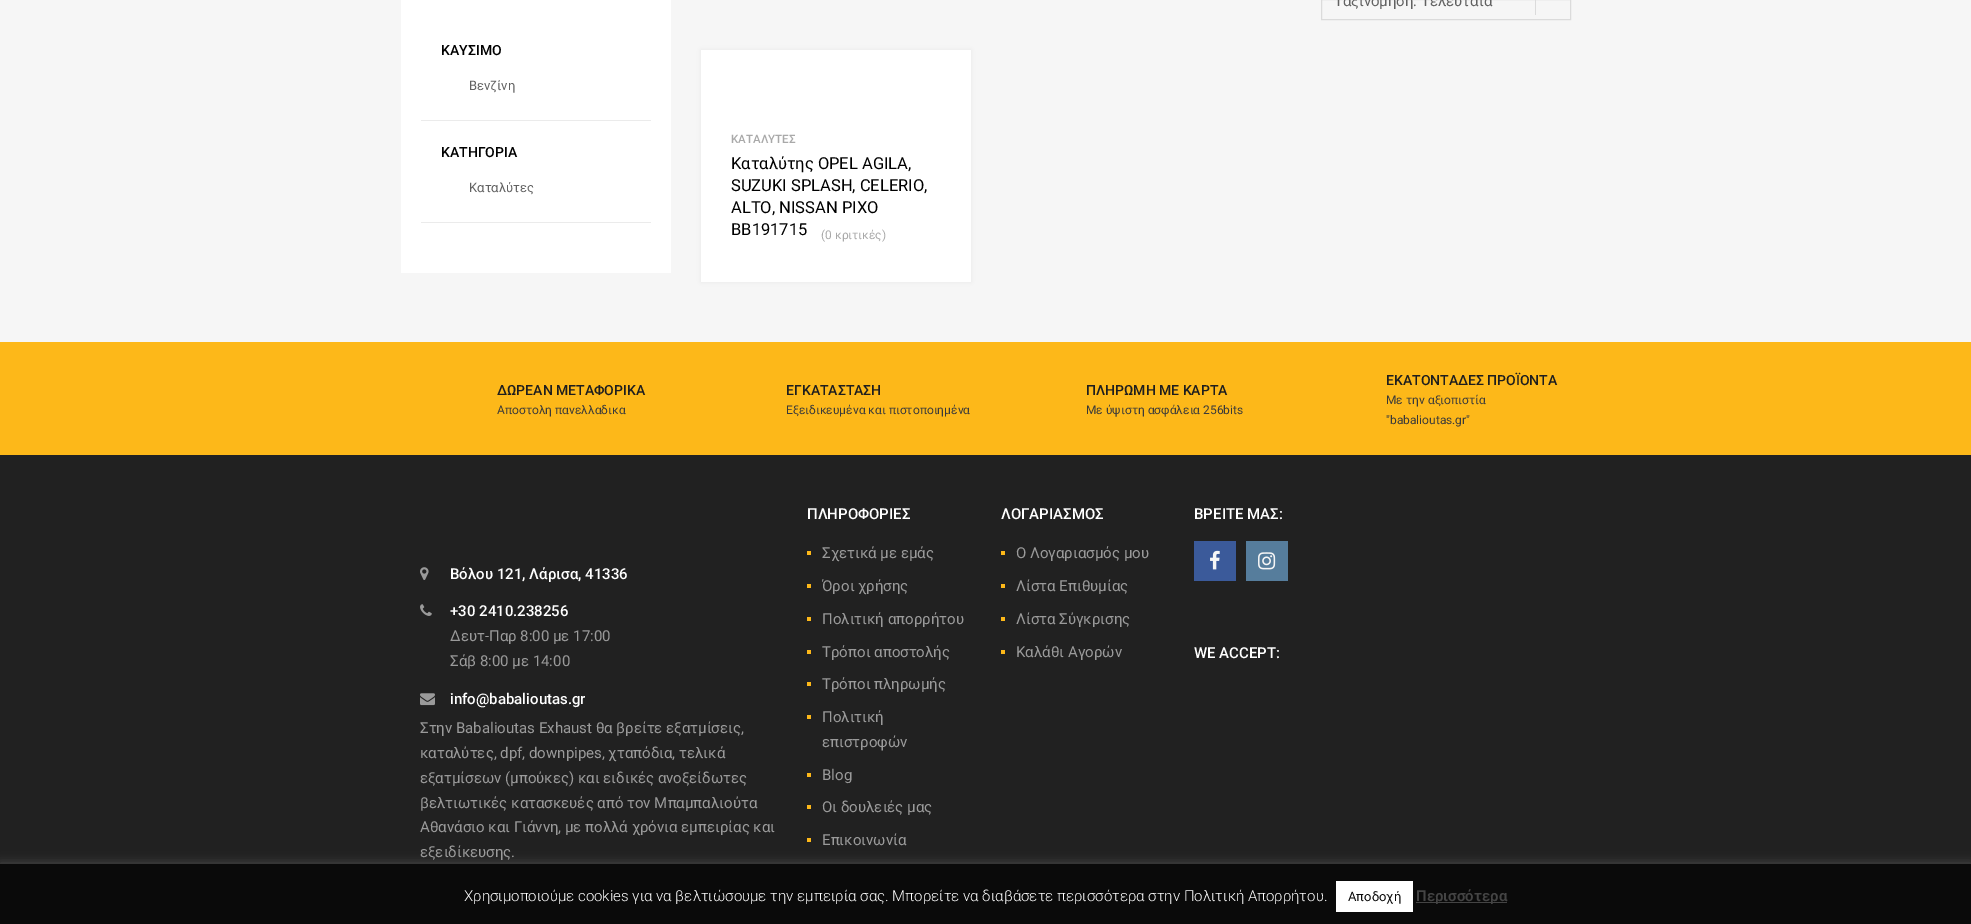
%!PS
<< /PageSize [1971 924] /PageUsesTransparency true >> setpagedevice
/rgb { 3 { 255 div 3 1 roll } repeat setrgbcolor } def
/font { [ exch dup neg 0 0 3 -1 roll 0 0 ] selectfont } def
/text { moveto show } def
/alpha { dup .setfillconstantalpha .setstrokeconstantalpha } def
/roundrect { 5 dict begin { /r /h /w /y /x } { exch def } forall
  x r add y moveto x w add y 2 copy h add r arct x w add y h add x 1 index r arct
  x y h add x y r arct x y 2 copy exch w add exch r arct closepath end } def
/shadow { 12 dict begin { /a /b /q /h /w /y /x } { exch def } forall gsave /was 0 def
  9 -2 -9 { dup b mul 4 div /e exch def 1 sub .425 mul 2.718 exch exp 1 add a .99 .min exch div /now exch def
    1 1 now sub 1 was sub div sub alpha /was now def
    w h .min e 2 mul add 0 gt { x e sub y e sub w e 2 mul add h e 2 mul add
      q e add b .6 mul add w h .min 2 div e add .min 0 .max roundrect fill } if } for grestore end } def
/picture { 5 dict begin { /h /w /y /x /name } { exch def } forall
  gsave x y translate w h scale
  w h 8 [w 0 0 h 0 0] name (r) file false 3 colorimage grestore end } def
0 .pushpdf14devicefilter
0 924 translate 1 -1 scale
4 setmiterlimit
246 246 246 rgb
0 0 1971 924 rectfill
255 255 255 rgb
401 0 270 273 rectfill
235 235 235 rgb
421 120 230 1 rectfill
421 222 230 1 rectfill
219 219 219 rgb
1535 0 1 15 rectfill
1321.5 -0.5 249 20 rectstroke
0 0 0 rgb
701 50 270 232 0 2.5 0.05 shadow
255 255 255 rgb
701 50 270 232 rectfill
33 33 33 rgb
0 455 1971 409 rectfill
253 184 25 rgb
0 342 1971 113 rectfill
(img_01.rgb) 420 567 9 13 picture
(img_02.rgb) 420 604 12 12 picture
(img_03.rgb) 420 693 15 13 picture
807 551 4 4 rectfill
807 584 4 4 rectfill
807 617 4 4 rectfill
807 650 4 4 rectfill
807 682 4 4 rectfill
807 715 4 4 rectfill
807 773 4 4 rectfill
807 805 4 4 rectfill
807 838 4 4 rectfill
1001 551 4 4 rectfill
1001 584 4 4 rectfill
1001 617 4 4 rectfill
1001 650 4 4 rectfill
59 90 154 rgb
1194 541 42 40 rectfill
(img_04.rgb) 1210 550 10 20 picture
86 125 156 rgb
1246 541 42 40 rectfill
(img_05.rgb) 1258 552 18 18 picture
172 171 171 rgb
0 863 1971 60 0 5 0.3 shadow
10 10 10 rgb
0 864 1971 60 rectfill
255 255 255 rgb
1336 881 77 31 rectfill
68 68 68 rgb
1416 902 91 1 rectfill
/Roboto-Medium 14 font
0 0 0 rgb
(ΚΑΥΣΙΜΟ) 441 55 text
/Roboto-Regular 13 font
98 98 98 rgb
(Βενζίνη) 469 90 text
/Roboto-Medium 14 font
0 0 0 rgb
(ΚΑΤΗΓΟΡΙΑ) 441 157 text
/Roboto-Regular 13 font
98 98 98 rgb
(Καταλύτες) 469 192 text
/Roboto-Regular 15 font
(Ταξινόμηση: Τελευταία) 1334 6 text
/Roboto-Medium 11.5 font
169 169 169 rgb
(ΚΑΤΑΛΥΤΕΣ) 731 143 text
/Roboto-Regular 16.5 font
0 0 0 rgb
(Καταλύτης OPEL AGILA,) 731 169 text
(SUZUKI SPLASH, CELERIO,) 731 191 text
(ALTO, NISSAN PIXO) 731 213 text
(BB191715) 731 235 text
/Roboto-Regular 12 font
169 169 169 rgb
(\(0 κριτικές\)) 821 239 text
/Roboto-Medium 14 font
30 30 30 rgb
(ΔΩΡΕΑΝ ΜΕΤΑΦΟΡΙΚΑ) 497 395 text
/Roboto-Regular 12 font
58 58 58 rgb
(Αποστολη πανελλαδικα) 497 414 text
/Roboto-Medium 14 font
30 30 30 rgb
(ΕΓΚΑΤΑΣΤΑΣΗ) 786 395 text
/Roboto-Regular 12 font
58 58 58 rgb
(Εξειδικευμένα και πιστοποιημένα) 786 414 text
/Roboto-Medium 14 font
30 30 30 rgb
(ΠΛΗΡΩΜΗ ΜΕ ΚΑΡΤΑ) 1086 395 text
/Roboto-Regular 12 font
58 58 58 rgb
(Με ύψιστη ασφάλεια 256bits) 1086 414 text
/Roboto-Medium 14 font
30 30 30 rgb
(ΕΚΑΤΟΝΤΑΔΕΣ ΠΡΟΪΟΝΤΑ) 1386 385 text
/Roboto-Regular 12 font
58 58 58 rgb
(Με την αξιοπιστία) 1386 404 text
("babalioutas.gr") 1386 424 text
/Roboto-Medium 15 font
255 255 255 rgb
(Βόλου 121, Λάρισα, 41336) 450 579 text
(+30 2410.238256) 450 616 text
/Roboto-Regular 15 font
154 154 154 rgb
(Δευτ-Παρ 8:00 με 17:00) 450 641 text
(Σάβ 8:00 με 14:00) 450 666 text
/Roboto-Medium 15 font
255 255 255 rgb
(info@babalioutas.gr) 450 704 text
/Roboto-Regular 15 font
154 154 154 rgb
(Στην Babalioutas Exhaust θα βρείτε εξατμίσεις,) 420 733 text
(καταλύτες, dpf, downpipes, χταπόδια, τελικά) 420 758 text
(εξατμίσεων \(μπούκες\) και ειδικές ανοξείδωτες) 420 783 text
(βελτιωτικές κατασκευές από τον Μπαμπαλιούτα) 420 808 text
(Αθανάσιο και Γιάννη, με πολλά χρόνια εμπειρίας και) 420 832 text
(εξειδίκευσης.) 420 857 text
/Roboto-Medium 15 font
255 255 255 rgb
(ΠΛΗΡΟΦΟΡΙΕΣ) 807 519 text
/Roboto-Regular 15 font
154 154 154 rgb
(Σχετικά με εμάς) 822 558 text
(Όροι χρήσης) 822 591 text
(Πολιτική απορρήτου) 822 624 text
(Τρόποι αποστολής) 822 657 text
(Τρόποι πληρωμής) 822 689 text
(Πολιτική) 822 722 text
(επιστροφών) 822 747 text
(Blog) 822 780 text
(Οι δουλειές μας) 822 812 text
(Επικοινωνία) 822 845 text
/Roboto-Medium 15 font
255 255 255 rgb
(ΛΟΓΑΡΙΑΣΜΟΣ) 1001 519 text
/Roboto-Regular 15 font
154 154 154 rgb
(Ο Λογαριασμός μου) 1016 558 text
(Λίστα Επιθυμίας) 1016 591 text
(Λίστα Σύγκρισης) 1016 624 text
(Καλάθι Αγορών) 1016 657 text
/Roboto-Medium 15 font
255 255 255 rgb
(ΒΡΕΙΤΕ ΜΑΣ:) 1194 519 text
(WE ACCEPT:) 1194 658 text
/Roboto-Light 15 font
(Χρησιμοποιούμε cookies για να βελτιώσουμε την εμπειρία σας. Μπορείτε να διαβάσετε περισσότερα στην Πολιτική Απορρήτου.) 464 901 text
/Roboto-Regular 13 font
10 10 10 rgb
(Αποδοχή) 1348 901 text
/Roboto-SemiBold 15 font
68 68 68 rgb
(Περισσότερα) 1416 901 text
.poppdf14devicefilter showpage
